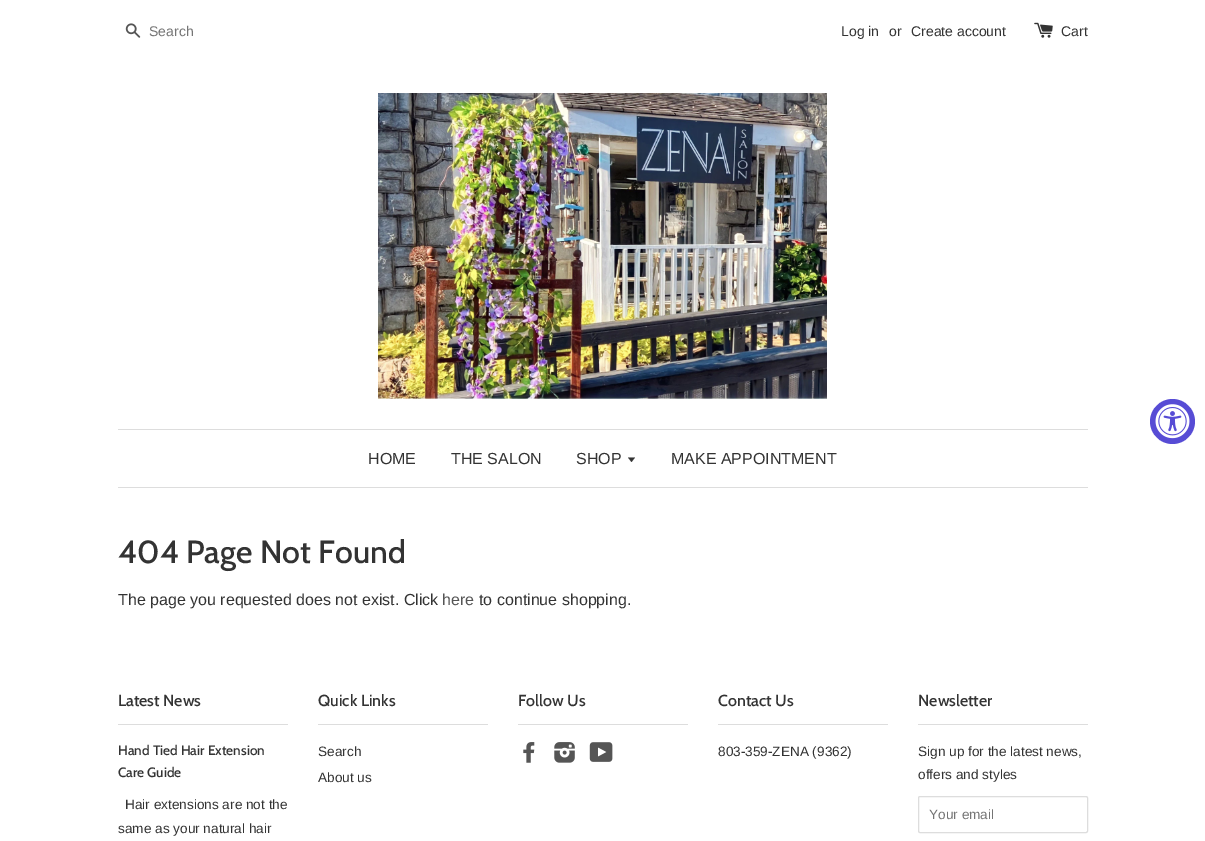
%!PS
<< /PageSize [1205 841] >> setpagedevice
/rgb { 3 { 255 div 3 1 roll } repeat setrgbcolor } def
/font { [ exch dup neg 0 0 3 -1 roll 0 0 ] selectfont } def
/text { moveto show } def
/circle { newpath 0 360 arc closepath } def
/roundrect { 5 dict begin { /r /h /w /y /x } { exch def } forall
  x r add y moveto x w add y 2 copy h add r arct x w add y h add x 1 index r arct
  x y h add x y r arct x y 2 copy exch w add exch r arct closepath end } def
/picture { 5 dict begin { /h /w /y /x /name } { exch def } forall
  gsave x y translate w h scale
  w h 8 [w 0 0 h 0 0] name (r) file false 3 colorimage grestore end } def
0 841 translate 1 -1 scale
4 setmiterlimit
255 255 255 rgb
0 0 1205 841 rectfill
(img_01.rgb) 125 23 16 15 picture
(img_02.rgb) 1034 22 19 16 picture
87 76 213 rgb
1172.5 421.5 22.5 circle fill
(img_03.rgb) 1155 404 35 35 picture
(img_04.rgb) 378 93 449 306 picture
221 221 221 rgb
118 429 970 1 rectfill
118 487 970 1 rectfill
51 51 51 rgb
628 457.5 moveto 3.5 4.5 rlineto 3.5 -4.5 rlineto closepath fill
221 221 221 rgb
118 724 170 1 rectfill
318 724 170 1 rectfill
518 724 170 1 rectfill
(img_05.rgb) 523 742 12 21 picture
(img_06.rgb) 554 742 21 21 picture
(img_07.rgb) 589 742 24 20 picture
718 724 170 1 rectfill
918 724 170 1 rectfill
918.5 796.5 169 36 1.5 roundrect stroke
/LiberationSans-Regular 14 font
117 117 117 rgb
(Search) 149 36 text
51 51 51 rgb
(Log in) 841 36 text
(or) 889 36 text
(Create account) 911 36 text
(Cart) 1061 36 text
/LiberationSans-Regular 16 font
(HOME) 368 464 text
(THE SALON) 451 464 text
(SHOP) 576 464 text
(MAKE APPOINTMENT) 671 464 text
/Cabin-Medium 32 font
(404 Page Not Found) 118 563 text
/LiberationSans-Regular 16 font
(The page you requested does not exist. Click) 118 605 text
85 85 85 rgb
(here) 442 605 text
51 51 51 rgb
(to continue shopping.) 479 605 text
/Cabin-Medium 16 font
(Latest News) 118 706 text
/Cabin-Medium 13.6 font
(Hand Tied Hair Extension) 118 755 text
(Care Guide) 118 777 text
/LiberationSans-Regular 13.6 font
(Hair extensions are not the) 125 809 text
(same as your natural hair) 118 833 text
/Cabin-Medium 16 font
(Quick Links) 318 706 text
/LiberationSans-Regular 13.6 font
(Search) 318 756 text
(About us) 318 782 text
/Cabin-Medium 16 font
(Follow Us) 518 706 text
(Contact Us) 718 706 text
/LiberationSans-Regular 13.6 font
(803-359-ZENA \(9362\)) 718 756 text
/Cabin-Medium 16 font
(Newsletter) 918 706 text
/LiberationSans-Regular 13.6 font
(Sign up for the latest news,) 918 756 text
(offers and styles) 918 779 text
117 117 117 rgb
(Your email) 929 819 text
showpage
